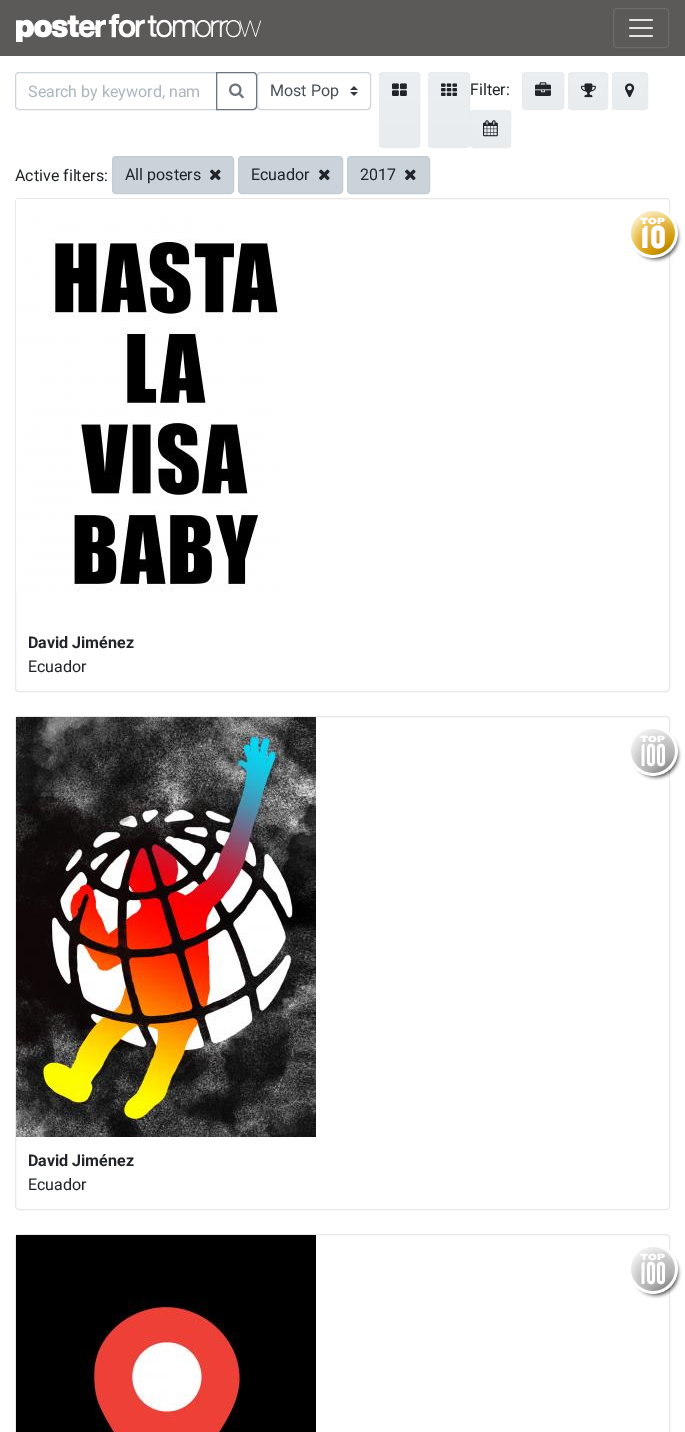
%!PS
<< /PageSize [685 1432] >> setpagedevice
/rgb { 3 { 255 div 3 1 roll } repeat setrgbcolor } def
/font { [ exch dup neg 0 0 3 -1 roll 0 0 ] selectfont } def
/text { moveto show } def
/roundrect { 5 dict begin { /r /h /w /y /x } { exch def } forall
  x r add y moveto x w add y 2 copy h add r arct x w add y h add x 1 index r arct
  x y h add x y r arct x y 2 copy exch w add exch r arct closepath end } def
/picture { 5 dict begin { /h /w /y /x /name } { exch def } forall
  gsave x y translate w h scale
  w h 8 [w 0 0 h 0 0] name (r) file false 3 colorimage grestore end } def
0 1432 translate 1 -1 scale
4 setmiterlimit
255 255 255 rgb
0 0 685 1432 rectfill
92 89 89 rgb
0 0 685 56 rectfill
(img_01.rgb) 16 14 245 28 picture
108 106 106 rgb
613.5 8.5 55 39 3.5 roundrect stroke
(img_02.rgb) 629 19 24 18 picture
206 212 218 rgb
19 72.5 moveto 197.5 0 rlineto 0 37 rlineto -197.5 0 rlineto -2 0 -3.5 -1.5 -3.5 -3.5 rcurveto 0 -30 rlineto 0 -2 1.5 -3.5 3.5 -3.5 rcurveto closepath stroke
108 117 125 rgb
216.5 72.5 moveto 36.5 0 rlineto 2 0 3.5 1.5 3.5 3.5 rcurveto 0 30 rlineto 0 2 -1.5 3.5 -3.5 3.5 rcurveto -36.5 0 rlineto closepath stroke
(img_03.rgb) 229 83 15 16 picture
(img_04.rgb) 350 86 8 10 picture
206 212 218 rgb
257.5 72.5 113 37 3.5 roundrect stroke
gsave
379 72 41 76 4 roundrect clip newpath
gsave 379 73 moveto 41 0 rlineto 0 74 rlineto -41 0 rlineto closepath clip newpath
<< /ShadingType 2 /ColorSpace /DeviceRGB /Coords [400 73 400 147] /Extend [true true] /Function << /FunctionType 2 /Domain [0 1] /C0 [0.925 0.937 0.945] /C1 [0.914 0.925 0.937] /N 1 >> >> shfill grestore
grestore
233 236 239 rgb
379.5 72.5 40 75 3.5 roundrect stroke
(img_05.rgb) 392 83 15 13 picture
gsave
428 72 42 76 4 roundrect clip newpath
gsave 428 73 moveto 42 0 rlineto 0 74 rlineto -42 0 rlineto closepath clip newpath
<< /ShadingType 2 /ColorSpace /DeviceRGB /Coords [449 73 449 147] /Extend [true true] /Function << /FunctionType 2 /Domain [0 1] /C0 [0.925 0.937 0.945] /C1 [0.914 0.925 0.937] /N 1 >> >> shfill grestore
grestore
428.5 72.5 41 75 3.5 roundrect stroke
(img_06.rgb) 441 83 16 13 picture
gsave
522 72 42 38 4 roundrect clip newpath
gsave 522 73 moveto 42 0 rlineto 0 36 rlineto -42 0 rlineto closepath clip newpath
<< /ShadingType 2 /ColorSpace /DeviceRGB /Coords [543 73 543 109] /Extend [true true] /Function << /FunctionType 2 /Domain [0 1] /C0 [0.925 0.937 0.945] /C1 [0.914 0.925 0.937] /N 1 >> >> shfill grestore
grestore
522.5 72.5 41 37 3.5 roundrect stroke
(img_07.rgb) 535 82 16 14 picture
gsave
568 72 40 38 4 roundrect clip newpath
gsave 568 73 moveto 40 0 rlineto 0 36 rlineto -40 0 rlineto closepath clip newpath
<< /ShadingType 2 /ColorSpace /DeviceRGB /Coords [588 73 588 109] /Extend [true true] /Function << /FunctionType 2 /Domain [0 1] /C0 [0.925 0.937 0.945] /C1 [0.914 0.925 0.937] /N 1 >> >> shfill grestore
grestore
568.5 72.5 39 37 3.5 roundrect stroke
(img_08.rgb) 581 83 15 15 picture
gsave
612 72 36 38 4 roundrect clip newpath
gsave 612 73 moveto 36 0 rlineto 0 36 rlineto -36 0 rlineto closepath clip newpath
<< /ShadingType 2 /ColorSpace /DeviceRGB /Coords [630 73 630 109] /Extend [true true] /Function << /FunctionType 2 /Domain [0 1] /C0 [0.925 0.937 0.945] /C1 [0.914 0.925 0.937] /N 1 >> >> shfill grestore
grestore
612.5 72.5 35 37 3.5 roundrect stroke
(img_09.rgb) 625 83 10 15 picture
gsave
470 110 41 38 4 roundrect clip newpath
gsave 470 111 moveto 41 0 rlineto 0 36 rlineto -41 0 rlineto closepath clip newpath
<< /ShadingType 2 /ColorSpace /DeviceRGB /Coords [491 111 491 147] /Extend [true true] /Function << /FunctionType 2 /Domain [0 1] /C0 [0.925 0.937 0.945] /C1 [0.914 0.925 0.937] /N 1 >> >> shfill grestore
grestore
470.5 110.5 40 37 3.5 roundrect stroke
(img_10.rgb) 483 120 15 17 picture
203 211 218 rgb
112.5 156.5 121 37 3.5 roundrect gsave fill grestore
196 204 212 rgb
stroke
(img_11.rgb) 210 169 11 12 picture
203 211 218 rgb
238.5 156.5 104 37 3.5 roundrect gsave fill grestore
196 204 212 rgb
stroke
(img_11.rgb) 319 169 11 12 picture
203 211 218 rgb
347.5 156.5 82 37 3.5 roundrect gsave fill grestore
196 204 212 rgb
stroke
(img_11.rgb) 405 169 11 12 picture
232 232 232 rgb
15.5 198.5 654 493 3.5 roundrect stroke
(img_12.rgb) 16 199 264 392 picture
(img_13.rgb) 631 211 51 52 picture
15.5 716.5 654 493 3.5 roundrect stroke
(img_14.rgb) 16 717 300 420 picture
(img_15.rgb) 631 729 51 52 picture
15.5 1234.5 654 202 3.5 roundrect stroke
(img_16.rgb) 16 1235 300 197 picture
(img_15.rgb) 631 1247 51 52 picture
/Roboto-Regular 16 font
173 181 189 rgb
(Search by keyword, nam) 28 97 text
73 80 87 rgb
(Most Pop) 270 96 text
33 37 41 rgb
(Filter:) 470 95 text
(Active filters:) 15 181 text
(All posters) 125 180 text
(Ecuador) 251 180 text
(2017) 360 180 text
/Roboto-Bold 16 font
(David Jiménez) 28 648 text
/Roboto-Regular 16 font
(Ecuador) 28 672 text
/Roboto-Bold 16 font
(David Jiménez) 28 1166 text
/Roboto-Regular 16 font
(Ecuador) 28 1190 text
showpage
